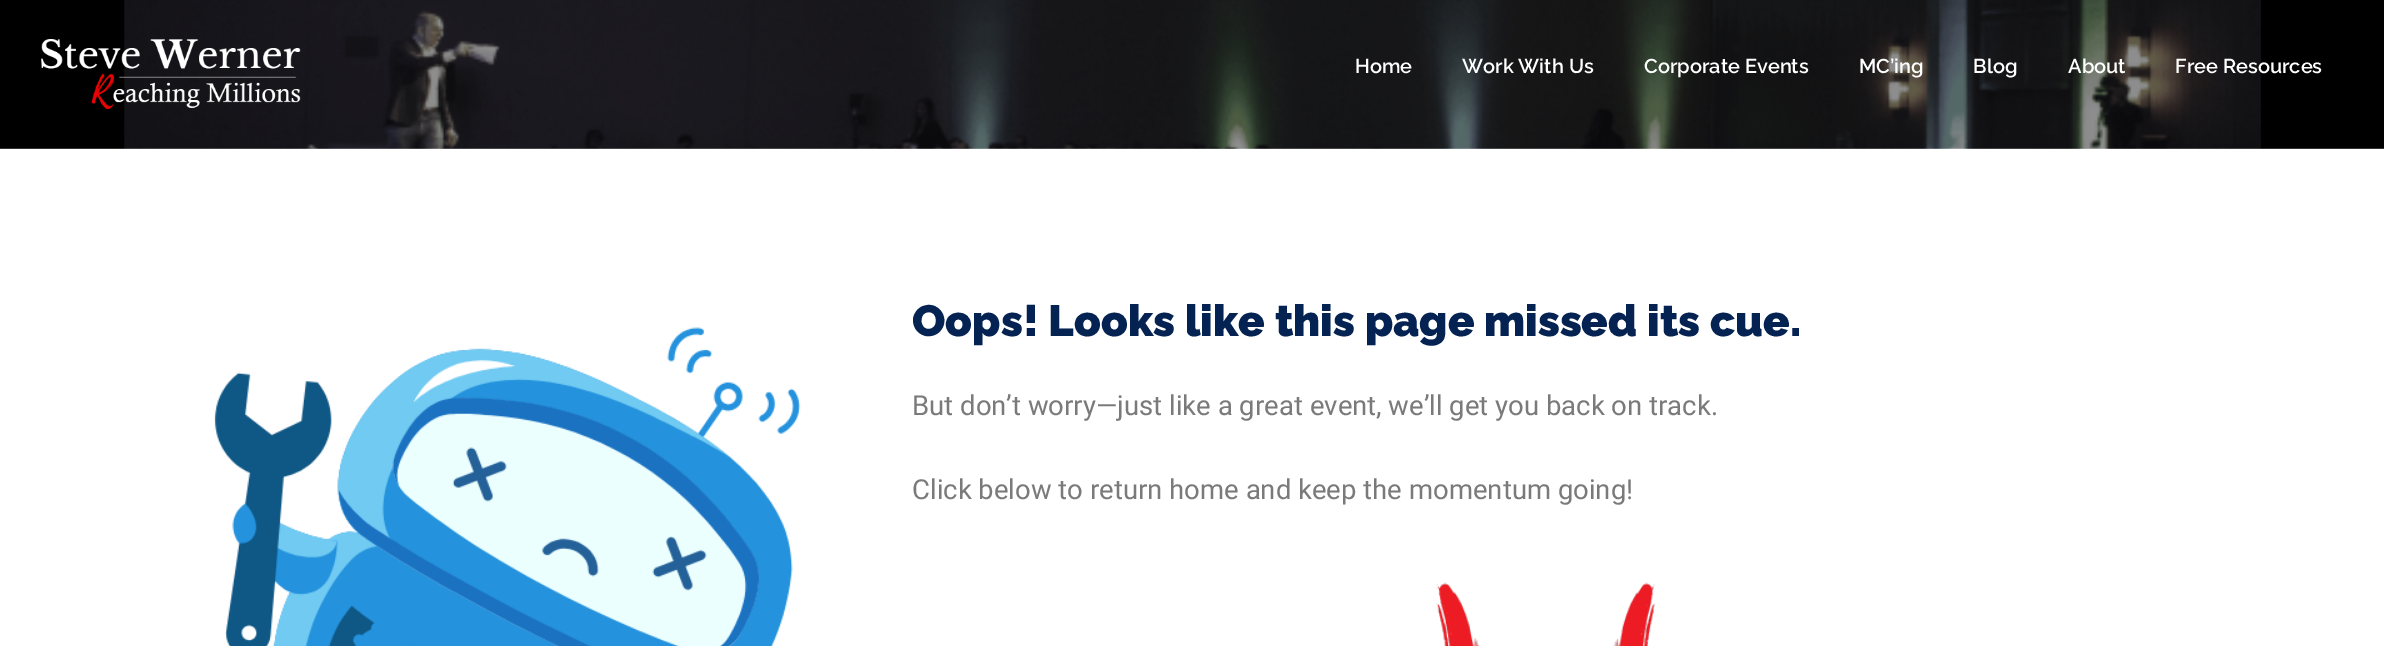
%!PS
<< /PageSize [2384 646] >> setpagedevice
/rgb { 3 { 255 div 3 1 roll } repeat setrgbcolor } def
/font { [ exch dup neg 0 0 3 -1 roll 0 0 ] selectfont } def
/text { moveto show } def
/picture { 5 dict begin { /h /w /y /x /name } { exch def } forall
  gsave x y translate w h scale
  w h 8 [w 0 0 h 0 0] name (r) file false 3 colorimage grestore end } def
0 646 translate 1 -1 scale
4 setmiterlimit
255 255 255 rgb
0 0 2384 646 rectfill
(img_01.rgb) 0 0 2384 149 picture
(img_02.rgb) 41 39 260 71 picture
(img_03.rgb) 214 327 587 319 picture
(img_04.rgb) 1436 582 44 64 picture
(img_05.rgb) 1613 582 42 64 picture
/Raleway-SemiBold 20 font
(Home) 1355 73 text
(Work With Us) 1462 73 text
(Corporate Events) 1644 73 text
(MC’ing) 1859 73 text
(Blog) 1973 73 text
(About) 2068 73 text
(Free Resources) 2175 73 text
/Raleway-Black 43.75 font
5 35 82 rgb
(Oops! Looks like this page missed its cue.) 912 336 text
/Roboto-Regular 27.5 font
122 122 122 rgb
(But don’t worry—just like a great event, we’ll get you back on track.) 912 415 text
(Click below to return home and keep the momentum going!) 912 499 text
showpage
